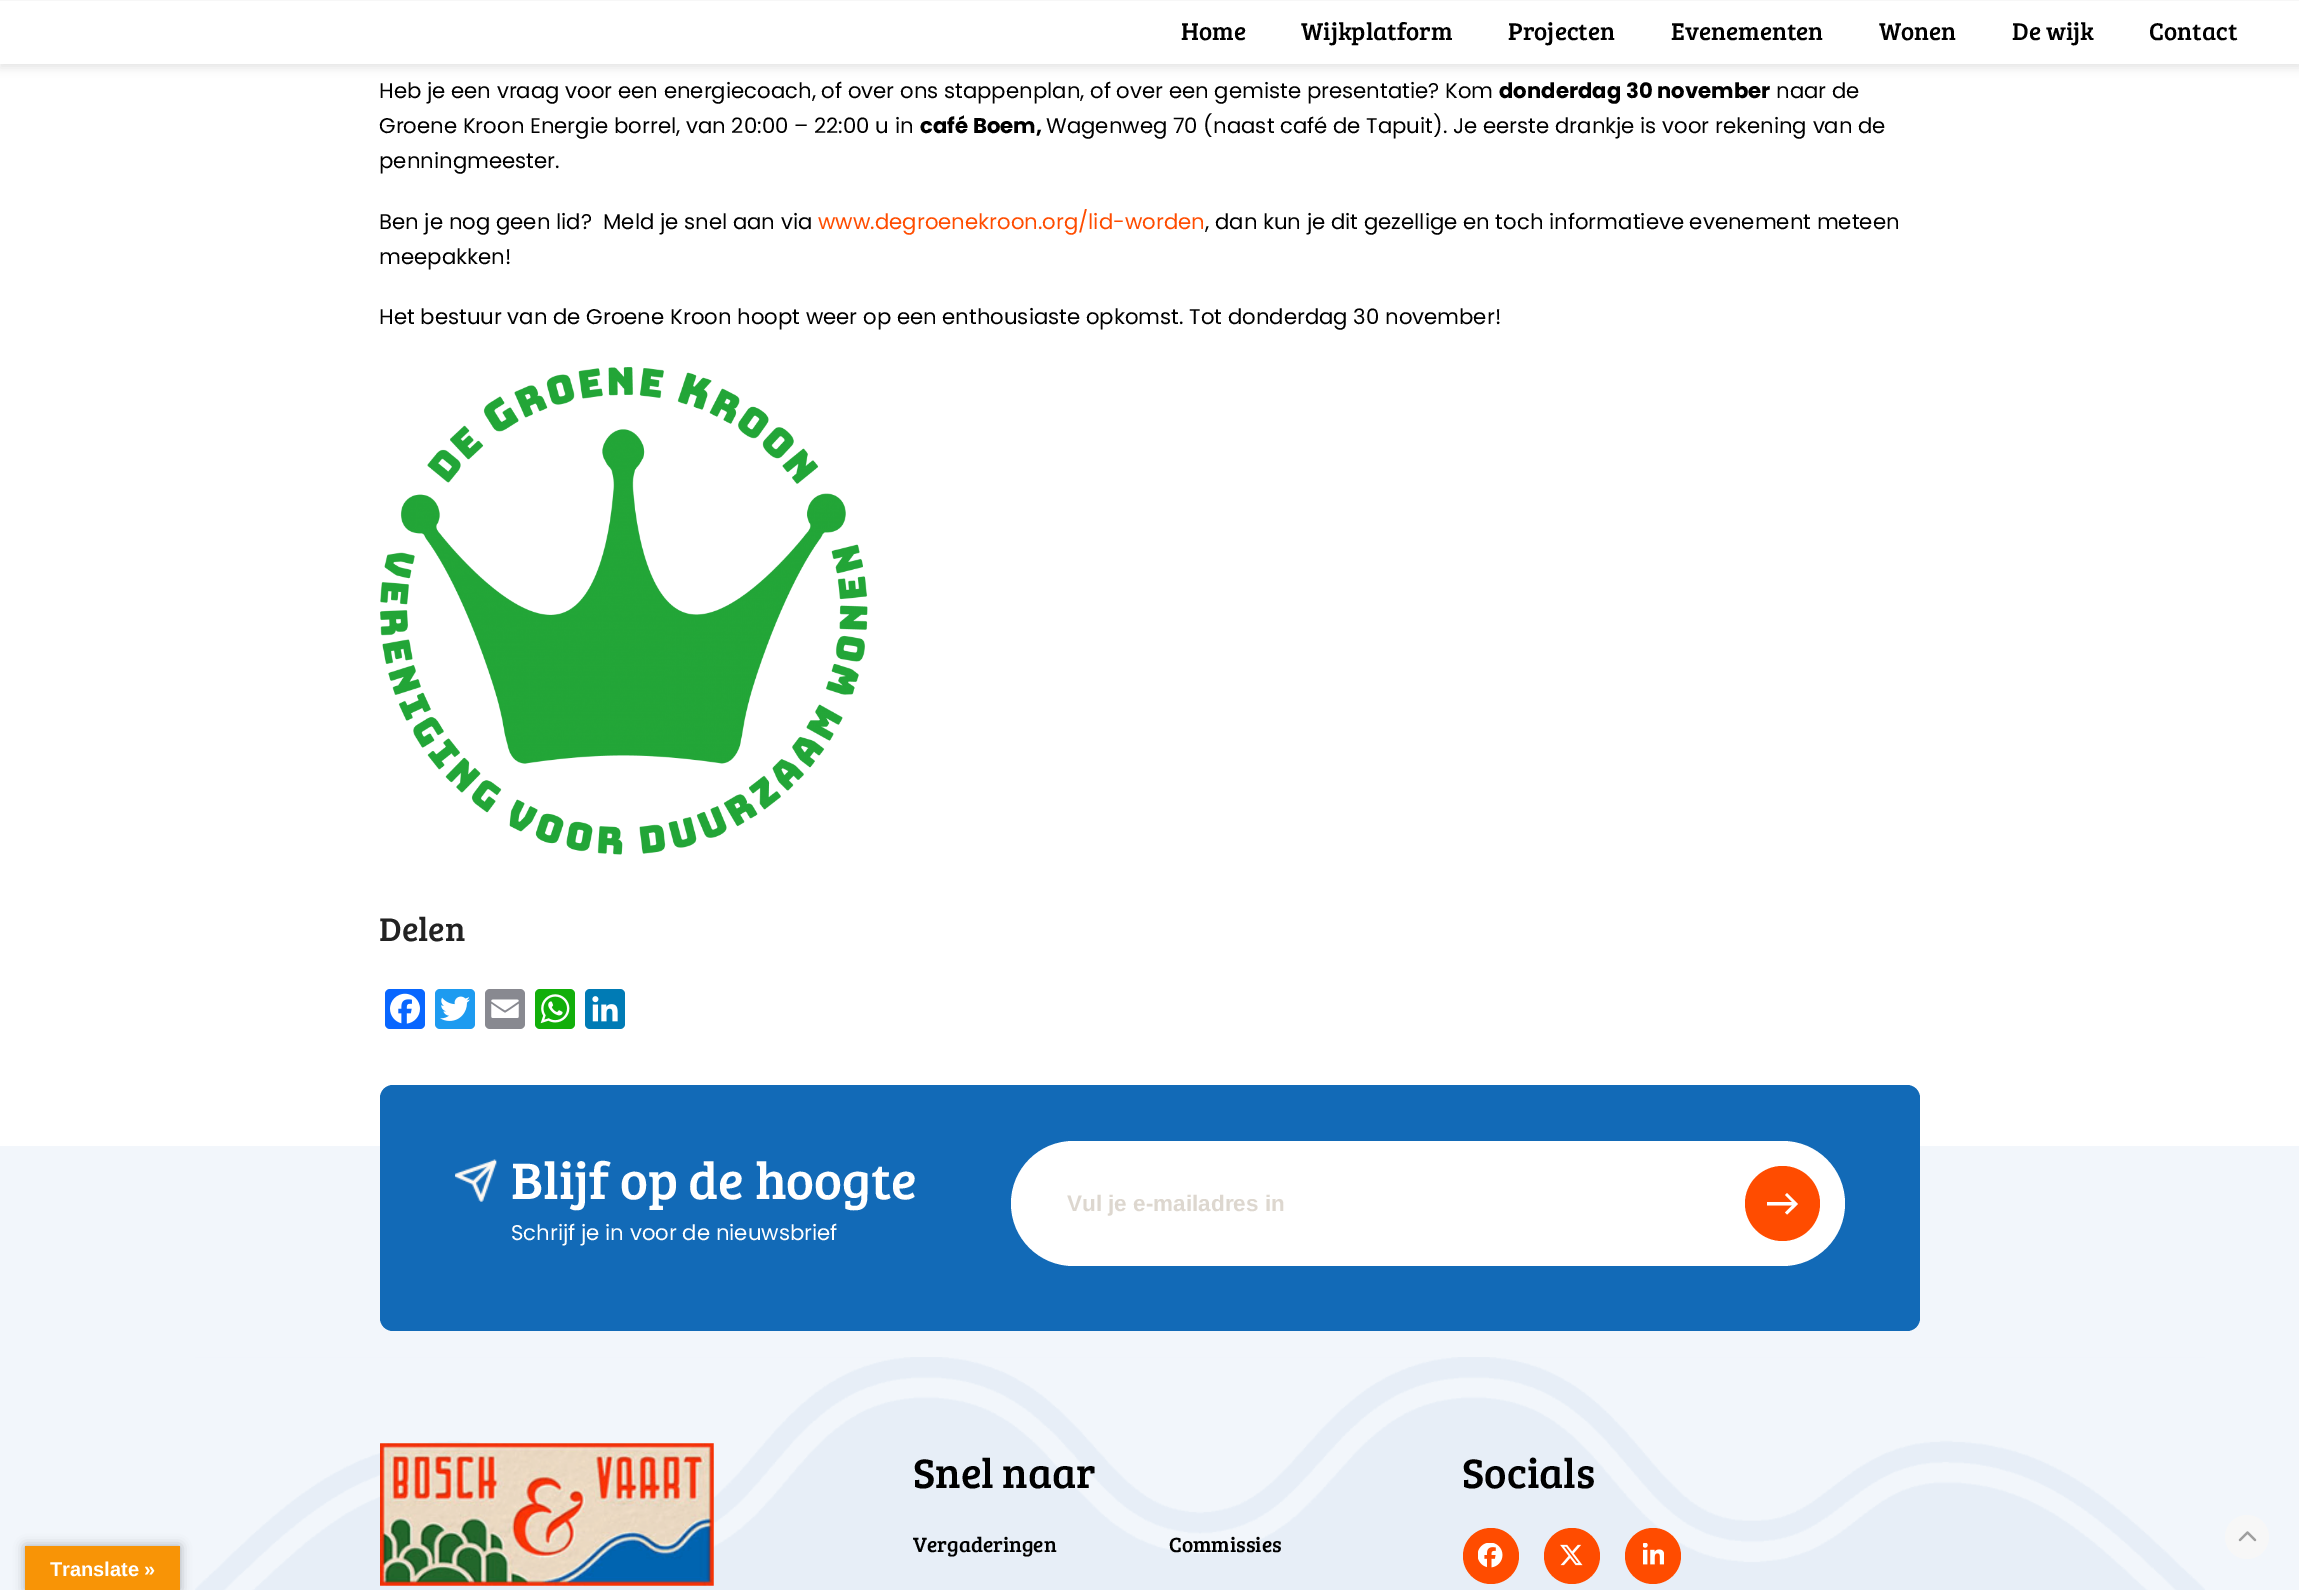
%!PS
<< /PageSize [2299 1590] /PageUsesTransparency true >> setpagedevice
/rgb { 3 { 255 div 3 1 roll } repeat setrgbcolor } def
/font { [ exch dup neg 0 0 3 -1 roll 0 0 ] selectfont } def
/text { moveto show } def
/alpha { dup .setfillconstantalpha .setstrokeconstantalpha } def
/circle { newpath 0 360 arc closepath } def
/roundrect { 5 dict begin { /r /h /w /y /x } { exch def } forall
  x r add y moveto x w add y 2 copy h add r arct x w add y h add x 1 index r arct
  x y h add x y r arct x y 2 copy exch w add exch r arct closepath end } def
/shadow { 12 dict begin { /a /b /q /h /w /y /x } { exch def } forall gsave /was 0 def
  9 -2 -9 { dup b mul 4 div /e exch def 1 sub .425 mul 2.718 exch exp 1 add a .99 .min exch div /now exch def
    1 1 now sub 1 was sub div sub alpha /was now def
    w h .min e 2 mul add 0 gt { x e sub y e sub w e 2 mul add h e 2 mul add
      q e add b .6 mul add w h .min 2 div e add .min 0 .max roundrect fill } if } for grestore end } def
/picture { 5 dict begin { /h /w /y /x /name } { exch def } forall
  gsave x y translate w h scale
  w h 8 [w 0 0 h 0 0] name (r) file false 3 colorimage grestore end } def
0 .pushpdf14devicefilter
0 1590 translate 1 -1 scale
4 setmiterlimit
255 255 255 rgb
0 0 2299 1590 rectfill
0 0 0 rgb
0 3 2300 65 0 4.5 0.1 shadow
255 255 255 rgb
0 1 2299 63 rectfill
(img_01.rgb) 380 367 488 488 picture
8 102 255 rgb
385 989 40 40 5 roundrect fill
(img_02.rgb) 390 993 30 31 picture
29 155 240 rgb
435 989 40 40 5 roundrect fill
(img_03.rgb) 440 996 30 25 picture
136 137 144 rgb
485 989 40 40 5 roundrect fill
(img_04.rgb) 491 999 28 19 picture
18 175 10 rgb
535 989 40 40 5 roundrect fill
(img_05.rgb) 540 994 30 30 picture
0 123 181 rgb
585 989 40 40 5 roundrect fill
(img_06.rgb) 592 996 26 26 picture
242 246 251 rgb
0 1146 2299 444 rectfill
18 106 183 rgb
380 1085 1540 246 13 roundrect fill
(img_07.rgb) 455 1159 42 43 picture
255 255 255 rgb
1011 1141 834 125 62.5 roundrect fill
255 76 0 rgb
1782.5 1203.5 37.5 circle fill
255 255 255 rgb
1787 1193 moveto -2 2 rlineto 7 7 rlineto -25 0 rlineto 0 3.5 rlineto 25 0 rlineto -7 7 rlineto 2 2 rlineto 11 -10.5 rlineto closepath fill
(img_08.rgb) 195 1357 2010 233 picture
(img_09.rgb) 380 1443 334 143 picture
255 76 0 rgb
1491 1556 28 circle fill
(img_10.rgb) 1478 1543 25 25 picture
1572 1556 28 circle fill
(img_11.rgb) 1560 1544 23 22 picture
1653 1556 28 circle fill
(img_12.rgb) 1643 1543 21 22 picture
247 247 247 rgb
2247 1537 22 circle fill
(img_13.rgb) 2238 1531 19 11 picture
0 0 0 rgb
25 1546 155 44 0 5.5 0.3 shadow
248 148 6 rgb
25 1546 155 44 rectfill
/BreeSerif-Regular 25 font
0 0 0 rgb
(Home) 1181 40 text
(Wijkplatform) 1301 40 text
(Projecten) 1508 40 text
(Evenementen) 1671 40 text
(Wonen) 1879 40 text
(De wijk) 2012 40 text
(Contact) 2149 40 text
/Poppins-Regular 21.25 font
(Heb je een vraag voor een energiecoach, of over ons stappenplan, of over een gemiste presentatie? Kom) 379 98 text
/Poppins-Bold 21.25 font
(donderdag 30 november) 1499 98 text
/Poppins-Regular 21.25 font
(naar de) 1776 98 text
(Groene Kroon Energie borrel, van 20:00 – 22:00 u in) 379 133 text
/Poppins-Bold 21.25 font
(café Boem,) 920 133 text
/Poppins-Regular 21.25 font
(Wagenweg 70 \(naast café de Tapuit\). Je eerste drankje is voor rekening van de) 1046 133 text
(penningmeester.) 379 168 text
(Ben je nog geen lid?  Meld je snel aan via) 379 229 text
255 76 0 rgb
(www.degroenekroon.org/lid-worden) 818 229 text
0 0 0 rgb
(, dan kun je dit gezellige en toch informatieve evenement meteen) 1205 229 text
(meepakken!) 379 264 text
(Het bestuur van de Groene Kroon hoopt weer op een enthousiaste opkomst. Tot donderdag 30 november!) 379 324 text
/BreeSerif-Regular 34 font
34 34 34 rgb
(Delen) 379 941 text
/BreeSerif-Regular 53 font
255 255 255 rgb
(Blijf op de hoogte) 511 1199 text
/Poppins-Regular 21.25 font
(Schrijf je in voor de nieuwsbrief) 511 1240 text
/LiberationSans-Bold 22.5 font
221 215 207 rgb
(Vul je e-mailadres in) 1067 1211 text
/BreeSerif-Regular 42.5 font
0 0 0 rgb
(Snel naar) 913 1488 text
/BreeSerif-Regular 21.25 font
(Vergaderingen) 913 1552 text
(Commissies) 1169 1552 text
/BreeSerif-Regular 42.5 font
(Socials) 1462 1488 text
/LiberationSans-Bold 20 font
255 255 255 rgb
(Translate ») 50 1576 text
.poppdf14devicefilter showpage
